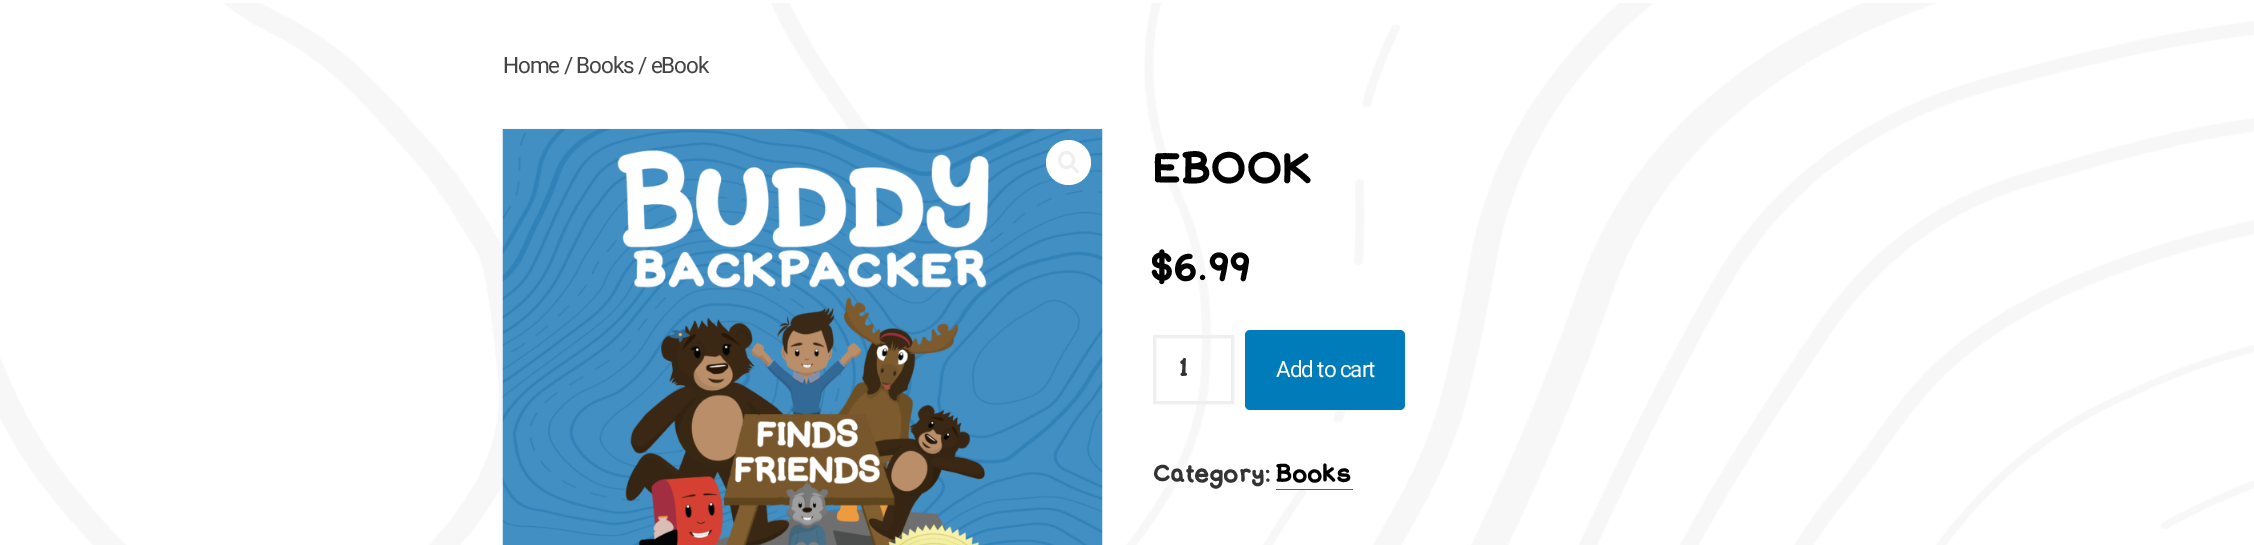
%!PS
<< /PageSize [2254 545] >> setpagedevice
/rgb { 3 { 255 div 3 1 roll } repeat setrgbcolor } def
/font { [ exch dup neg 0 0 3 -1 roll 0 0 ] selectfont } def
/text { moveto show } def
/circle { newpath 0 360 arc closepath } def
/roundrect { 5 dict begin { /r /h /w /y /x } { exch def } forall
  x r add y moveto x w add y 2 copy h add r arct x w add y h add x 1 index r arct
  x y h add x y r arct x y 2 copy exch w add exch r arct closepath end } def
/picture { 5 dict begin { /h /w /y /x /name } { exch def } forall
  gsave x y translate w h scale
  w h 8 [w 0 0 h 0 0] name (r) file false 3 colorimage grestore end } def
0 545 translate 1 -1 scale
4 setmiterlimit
255 255 255 rgb
0 0 2254 545 rectfill
(img_01.rgb) 0 3 2254 542 picture
(img_02.rgb) 502 128 601 417 picture
1068.5 162.5 22.5 circle fill
239 239 239 rgb
3 setlinewidth
1059.5 152.5 14 15 7 roundrect stroke
1071.5 165.5 moveto 1.5 -1.5 3.5 2 4.5 2.5 rcurveto 0.5 1 4 3 2.5 4.5 rcurveto -1.5 1.5 -3.5 -2 -4.5 -2.5 rcurveto -0.5 -1 -4 -3 -2.5 -4.5 rcurveto closepath fill
1154.5 336.5 78 66 rectstroke
0 124 186 rgb
1245 330 160 80 5 roundrect fill
1276 489 77 1 rectfill
/Roboto-Regular 22.5 font
68 68 68 rgb
503 73 moveto -1.1 0 (Home / Books / eBook) ashow
/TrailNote-Medium 40 font
0 0 0 rgb
1153 182 moveto -2 0 (EBOOK) ashow
/TrailNote-Medium 35 font
1153 279 moveto -1.75 0 ($6.99) ashow
/TrailNote-Medium 22.5 font
51 51 51 rgb
(1) 1178 375 text
/Roboto-Regular 22.5 font
255 255 255 rgb
1276 377 moveto -1.1 0 (Add to cart) ashow
/TrailNote-Medium 22.5 font
51 51 51 rgb
1153 481 moveto -1.1 0 (Category:) ashow
0 0 0 rgb
1276 481 moveto -1.1 0 (Books) ashow
showpage
